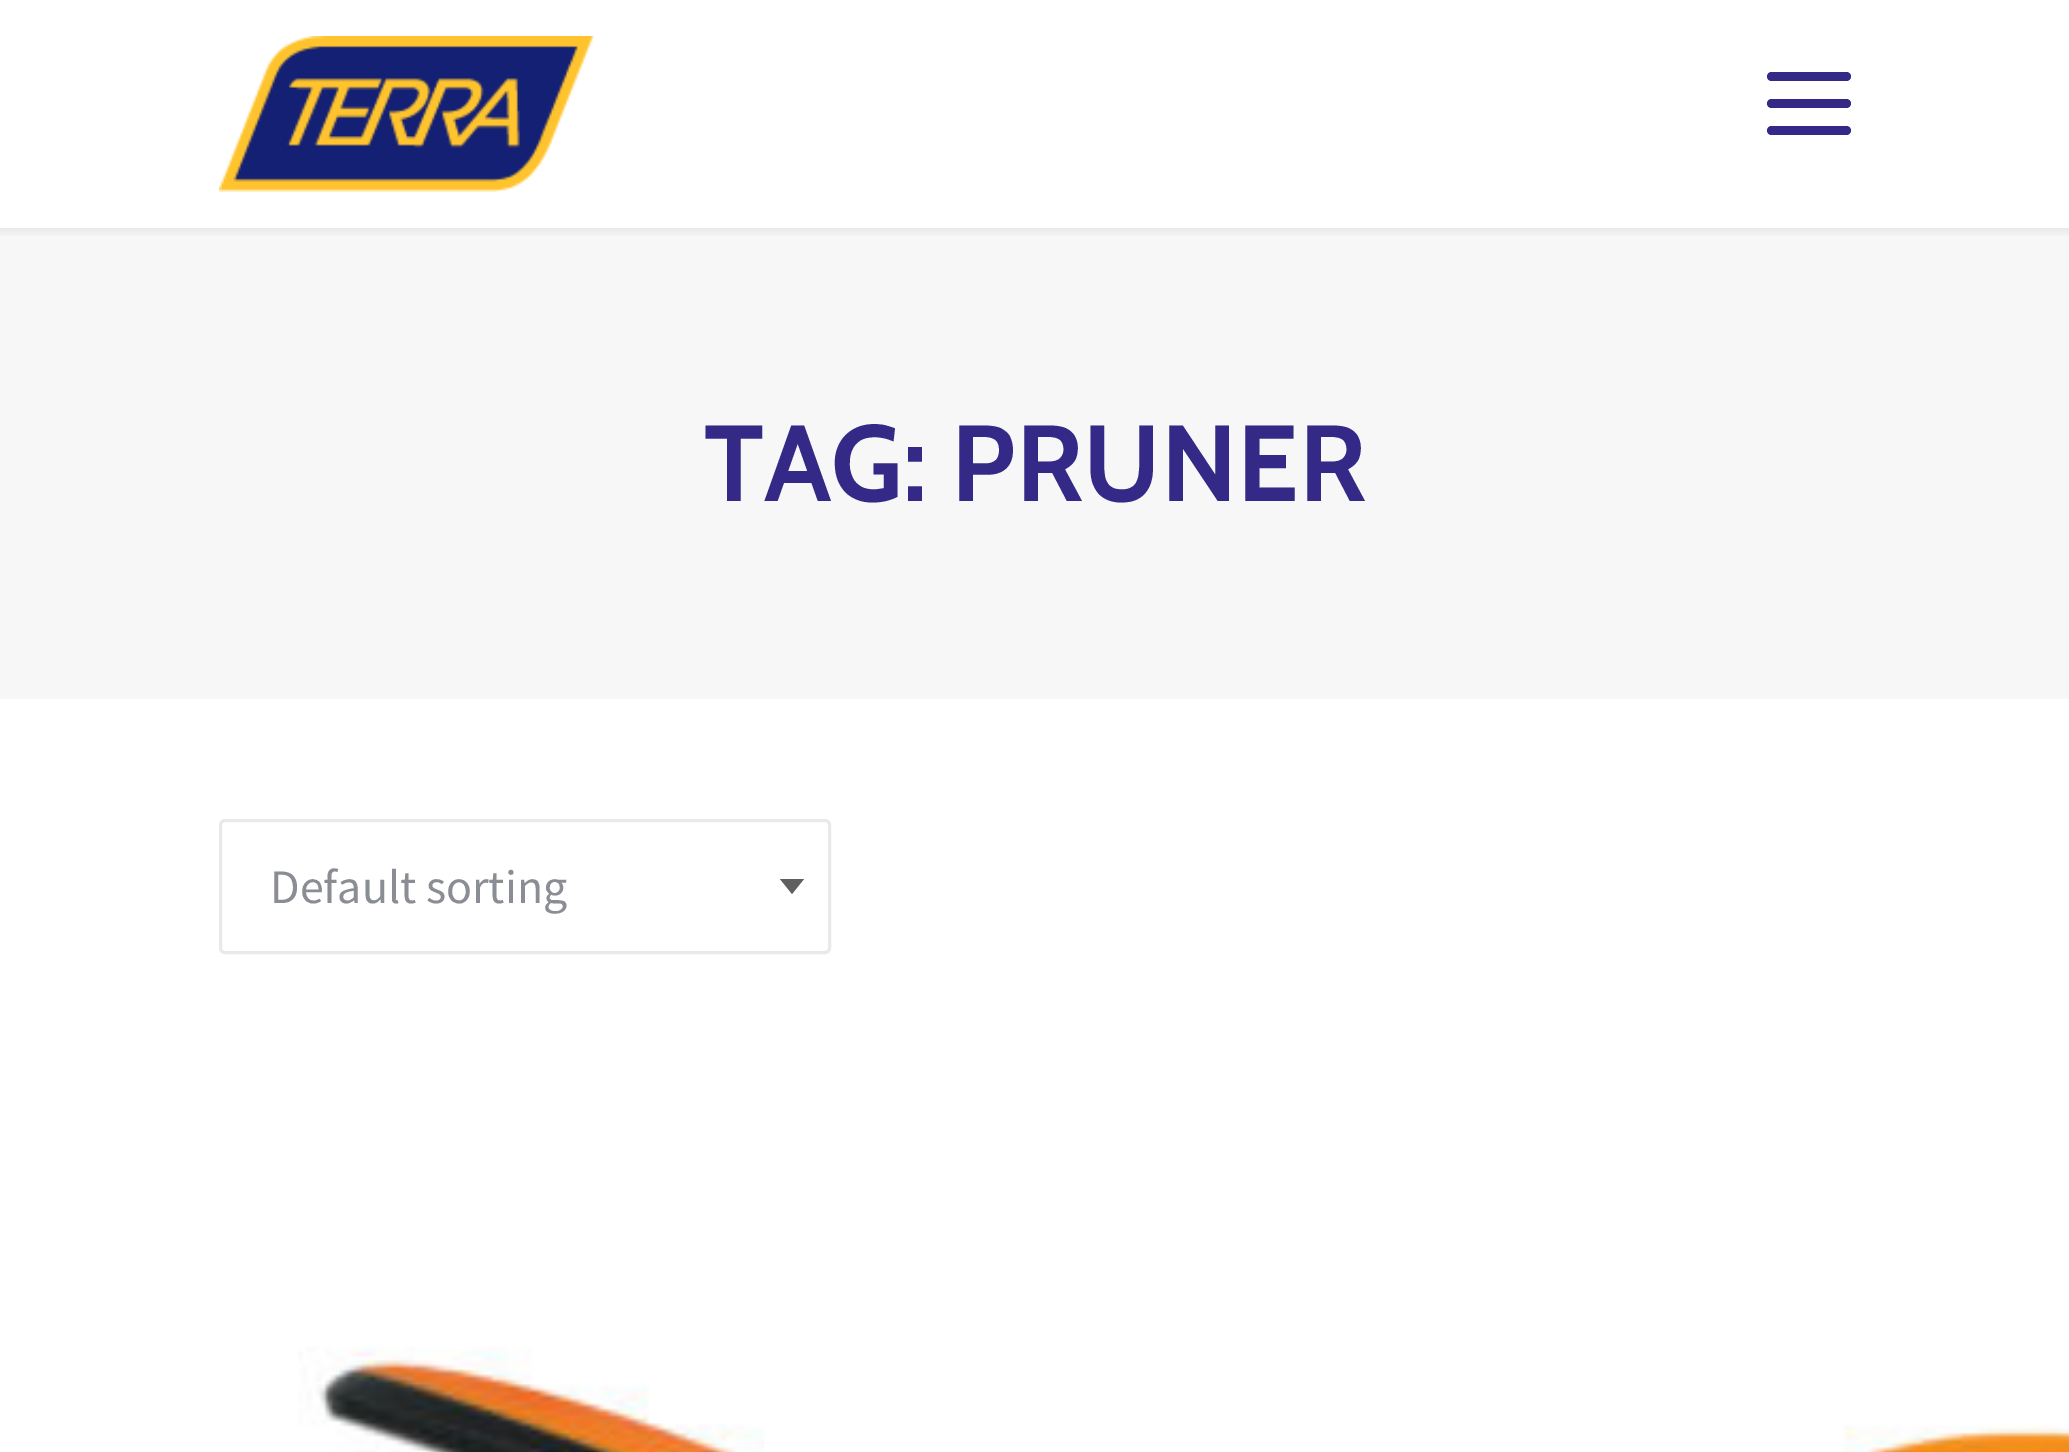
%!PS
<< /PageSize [2069 1452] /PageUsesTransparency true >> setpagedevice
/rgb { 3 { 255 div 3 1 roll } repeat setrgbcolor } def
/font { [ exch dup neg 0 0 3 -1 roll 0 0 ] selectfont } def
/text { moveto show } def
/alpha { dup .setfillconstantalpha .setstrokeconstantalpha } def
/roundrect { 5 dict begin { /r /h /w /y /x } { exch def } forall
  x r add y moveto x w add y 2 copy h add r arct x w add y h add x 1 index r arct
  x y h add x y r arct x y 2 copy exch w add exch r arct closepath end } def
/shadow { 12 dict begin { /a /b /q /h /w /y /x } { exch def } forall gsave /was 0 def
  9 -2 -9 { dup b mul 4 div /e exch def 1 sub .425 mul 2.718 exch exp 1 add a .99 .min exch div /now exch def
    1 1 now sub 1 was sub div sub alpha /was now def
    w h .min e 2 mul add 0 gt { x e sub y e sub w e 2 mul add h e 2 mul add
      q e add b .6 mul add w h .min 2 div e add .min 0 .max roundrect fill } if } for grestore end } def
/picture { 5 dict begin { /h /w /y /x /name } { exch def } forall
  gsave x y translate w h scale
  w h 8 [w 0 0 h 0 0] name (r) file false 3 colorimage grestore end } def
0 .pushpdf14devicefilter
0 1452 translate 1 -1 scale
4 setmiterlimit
255 255 255 rgb
0 0 2069 1452 rectfill
247 247 247 rgb
0 228 2069 471 rectfill
gsave
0 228 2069 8 rectclip
57 56 54 rgb
-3 -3 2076 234 0 6 0.1 shadow
grestore
(img_01.rgb) 219 36 375 156 picture
52 41 135 rgb
1767 99 84 9 4.5 roundrect fill
1767 72 84 9 4.5 roundrect fill
1767 126 84 9 4.5 roundrect fill
96 96 96 rgb
804 879 moveto -12 15 rlineto -12 -15 rlineto closepath fill
233 233 233 rgb
3 setlinewidth
220.5 820.5 609 132 4.5 roundrect stroke
(img_02.rgb) 298 1346 467 106 picture
(img_03.rgb) 1843 1425 226 27 picture
/Cabin-Bold 108 font
52 41 135 rgb
(TAG: PRUNER) 704 501 text
/SourceSansPro-Regular 48 font
139 141 148 rgb
(Default sorting) 270 903 text
.poppdf14devicefilter showpage
